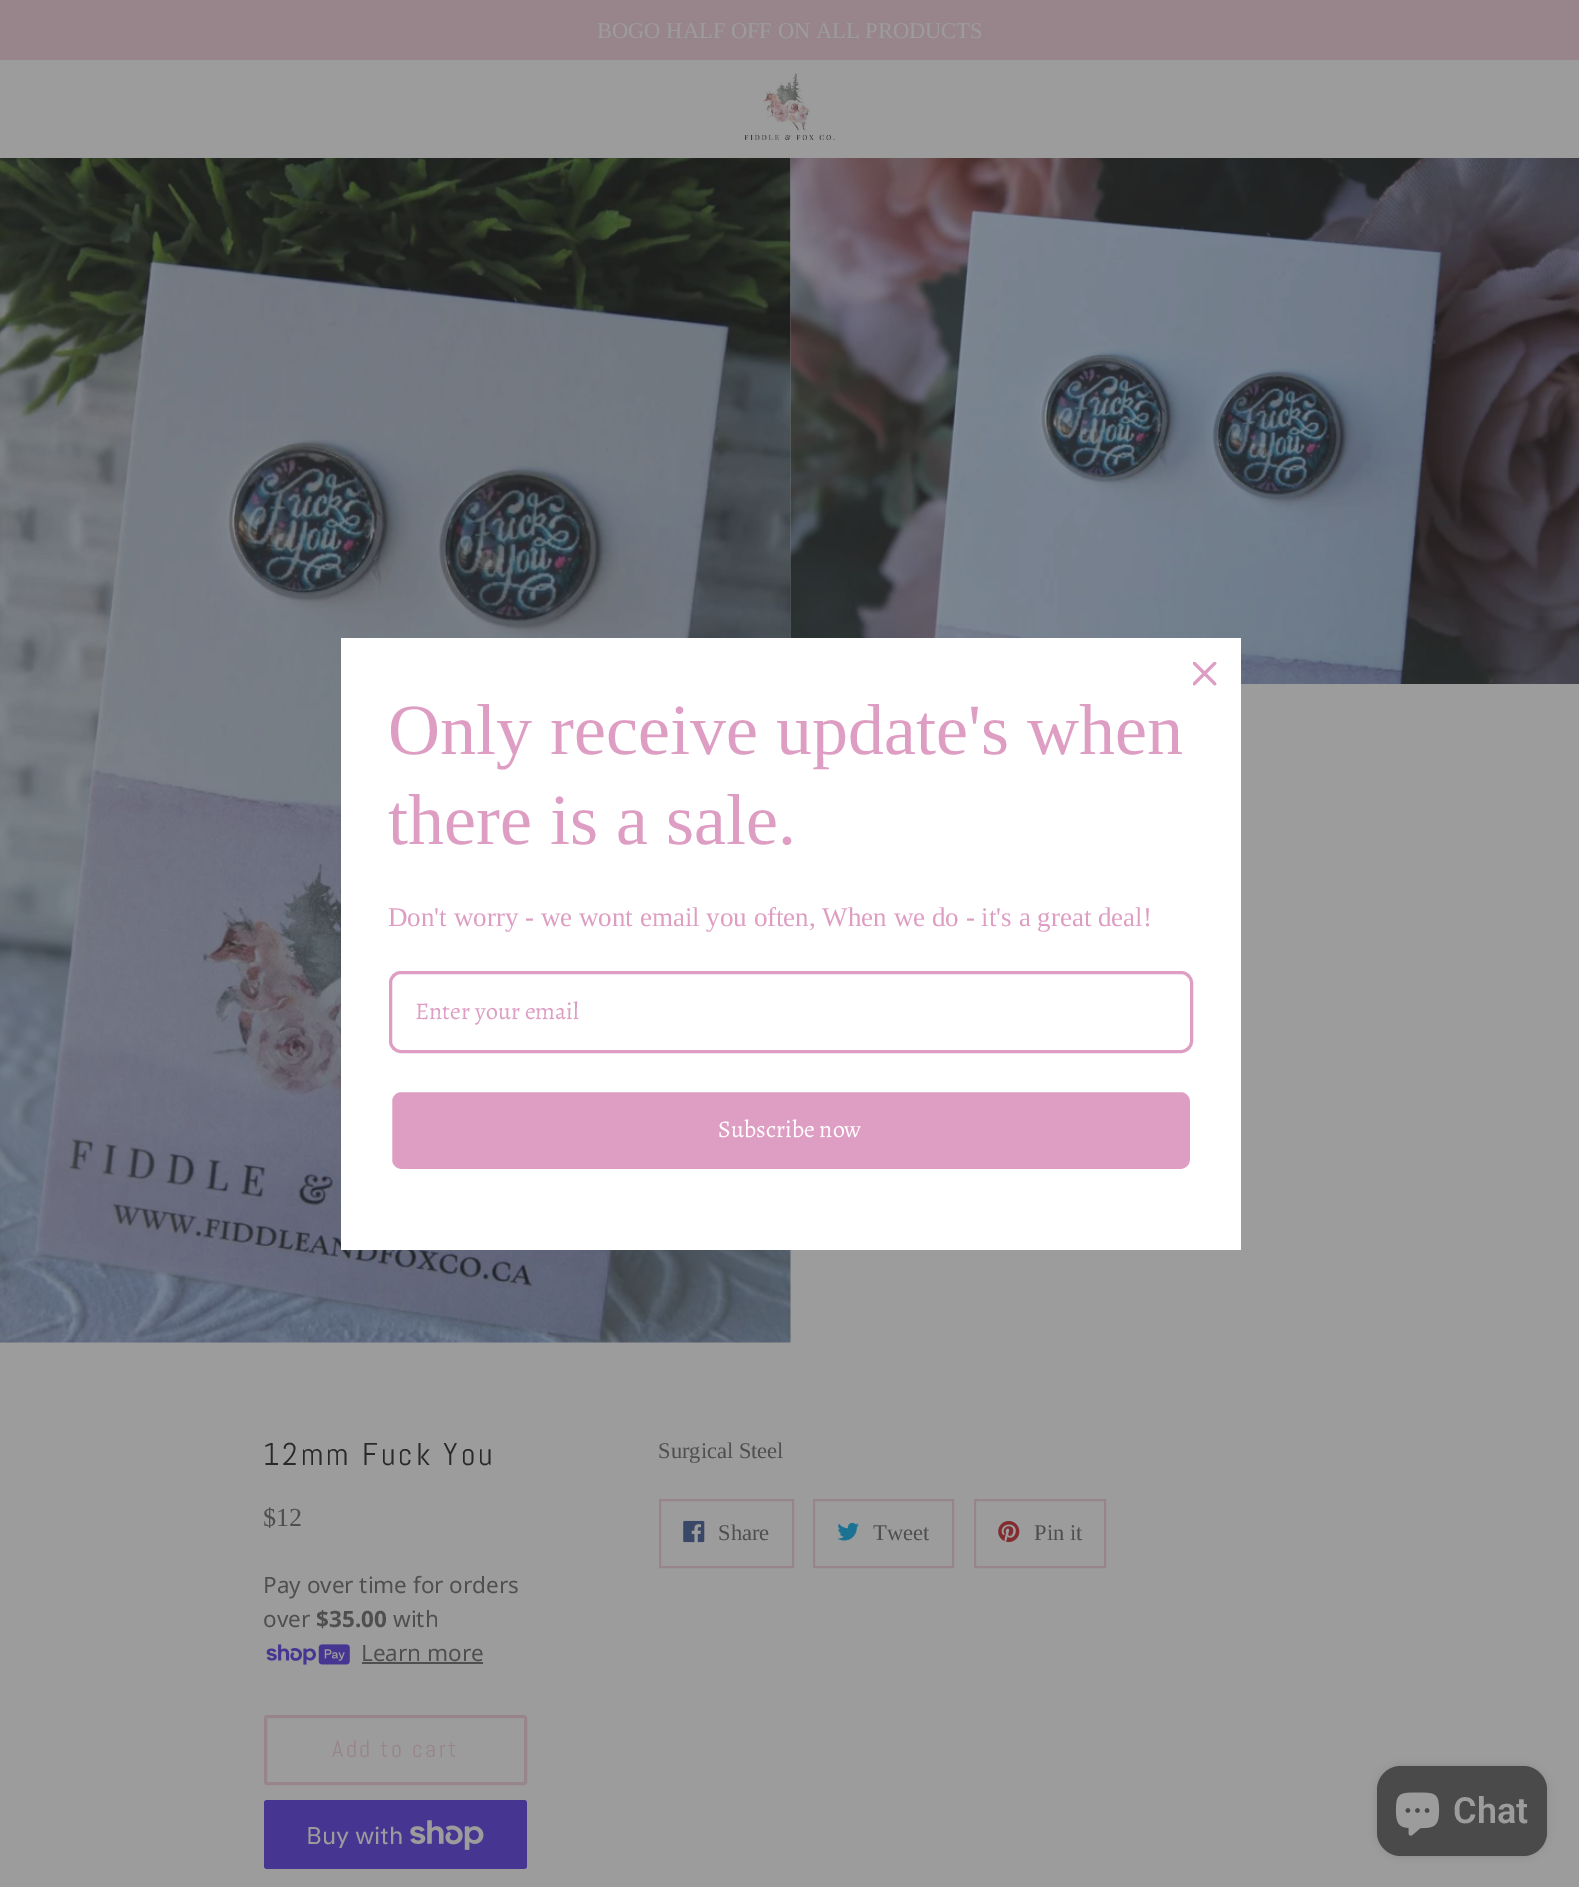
%!PS
<< /PageSize [1579 1887] /PageUsesTransparency true >> setpagedevice
/rgb { 3 { 255 div 3 1 roll } repeat setrgbcolor } def
/font { [ exch dup neg 0 0 3 -1 roll 0 0 ] selectfont } def
/text { moveto show } def
/alpha { dup .setfillconstantalpha .setstrokeconstantalpha } def
/roundrect { 5 dict begin { /r /h /w /y /x } { exch def } forall
  x r add y moveto x w add y 2 copy h add r arct x w add y h add x 1 index r arct
  x y h add x y r arct x y 2 copy exch w add exch r arct closepath end } def
/shadow { 12 dict begin { /a /b /q /h /w /y /x } { exch def } forall gsave /was 0 def
  9 -2 -9 { dup b mul 4 div /e exch def 1 sub .425 mul 2.718 exch exp 1 add a .99 .min exch div /now exch def
    1 1 now sub 1 was sub div sub alpha /was now def
    w h .min e 2 mul add 0 gt { x e sub y e sub w e 2 mul add h e 2 mul add
      q e add b .6 mul add w h .min 2 div e add .min 0 .max roundrect fill } if } for grestore end } def
/picture { 5 dict begin { /h /w /y /x /name } { exch def } forall
  gsave x y translate w h scale
  w h 8 [w 0 0 h 0 0] name (r) file false 3 colorimage grestore end } def
0 .pushpdf14devicefilter
0 1887 translate 1 -1 scale
4 setmiterlimit
156 156 156 rgb
0 0 1579 1887 rectfill
152 133 140 rgb
0 0 1579 60 rectfill
(img_01.rgb) 745 73 91 67 picture
(img_02.rgb) 0 158 791 1185 picture
(img_03.rgb) 790 158 789 526 picture
(img_04.rgb) 266 1644 84 21 picture
79 79 79 rgb
362 1662 121 2 rectfill
152 133 140 rgb
3 setlinewidth
265.5 1716.5 260 67 1.5 roundrect stroke
70 54 146 rgb
264 1800 263 69 3 roundrect fill
(img_05.rgb) 410 1820 74 30 picture
152 133 140 rgb
2 setlinewidth
660 1500 133 67 rectstroke
(img_06.rgb) 683 1520 22 23 picture
814 1500 139 67 rectstroke
(img_07.rgb) 837 1522 22 19 picture
975 1500 130 67 rectstroke
(img_08.rgb) 998 1521 22 21 picture
255 255 255 rgb
341 638 900 612 rectfill
(img_09.rgb) 1193 662 24 24 picture
222 158 195 rgb
3 setlinewidth
390.5 972.5 801 79 10.5 roundrect stroke
390.5 1090.5 801 80 10.5 roundrect gsave fill grestore
255 255 255 rgb
stroke
28 28 28 rgb
1377 1766 170 90 24 4 0.15 shadow
74 74 74 rgb
1377 1766 170 90 24 roundrect fill
(img_10.rgb) 1395 1792 45 44 picture
/LiberationSerif-Regular 22.5 font
156 156 156 rgb
(BOGO HALF OFF ON ALL PRODUCTS) 597 38 text
/Abel-Regular 31.5 font
41 41 41 rgb
263 1465 moveto 3.1 0 (12mm Fuck You) ashow
/LiberationSerif-Regular 26 font
79 79 79 rgb
($12) 263 1526 text
/NotoSans-Regular 22.5 font
(Pay over time for orders) 263 1593 text
(over) 263 1627 text
/NotoSans-Bold 22.5 font
($35.00) 316 1627 text
/NotoSans-Regular 22.5 font
(with) 393 1627 text
(Learn more) 361 1661 text
/Abel-Regular 24 font
152 133 140 rgb
332 1757 moveto 2.4 0 (Add to cart) ashow
/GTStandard-Regular 24 font
156 156 156 rgb
(Buy with) 306 1844 text
/LiberationSerif-Regular 22.5 font
79 79 79 rgb
(Surgical Steel) 658 1458 text
(Share) 718 1540 text
(Tweet) 873 1540 text
(Pin it) 1034 1540 text
/LiberationSerif-Regular 72 font
222 158 195 rgb
(Only receive update's when) 388 754 text
(there is a sale.) 388 844 text
/LiberationSerif-Regular 27 font
(Don't worry - we wont email you often, When we do - it's a great deal!) 388 926 text
/Alegreya-Regular 24 font
(Enter your email) 415 1019 text
255 255 255 rgb
(Subscribe now) 718 1137 text
/Roboto-SemiBold 36 font
156 156 156 rgb
(Chat) 1453 1823 text
.poppdf14devicefilter showpage
